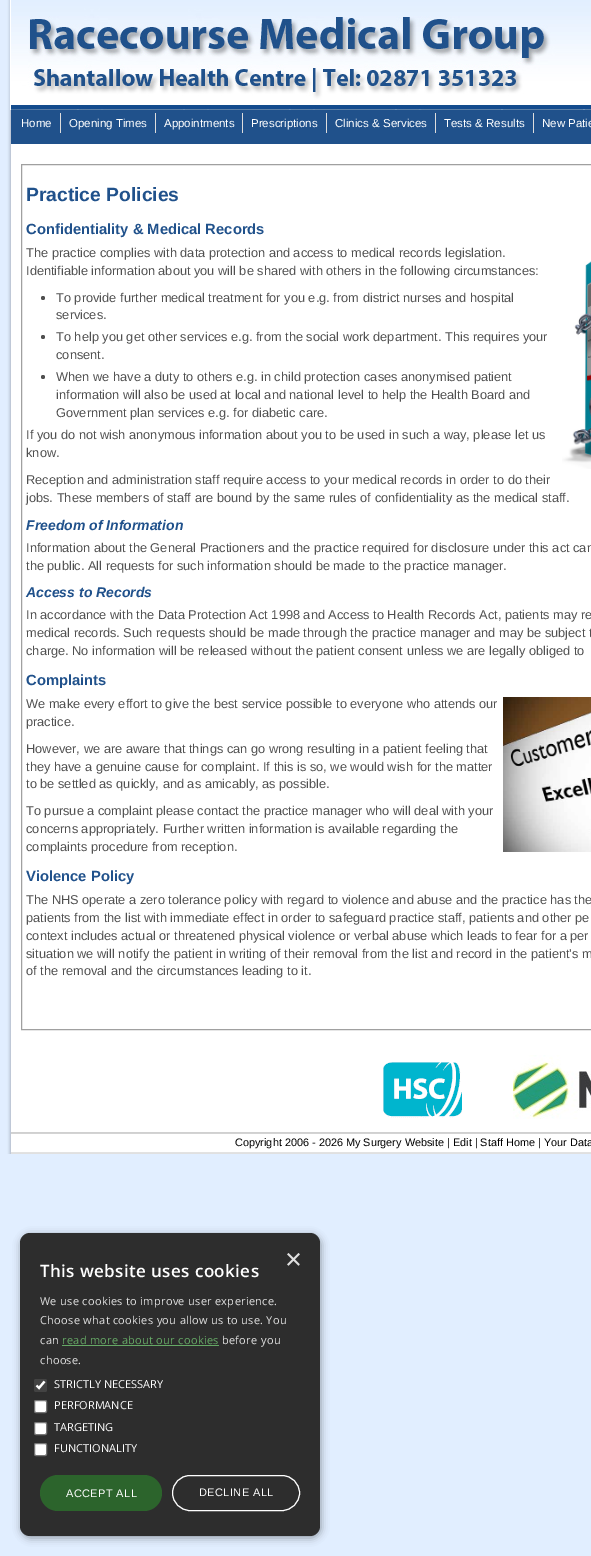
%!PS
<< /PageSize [591 1556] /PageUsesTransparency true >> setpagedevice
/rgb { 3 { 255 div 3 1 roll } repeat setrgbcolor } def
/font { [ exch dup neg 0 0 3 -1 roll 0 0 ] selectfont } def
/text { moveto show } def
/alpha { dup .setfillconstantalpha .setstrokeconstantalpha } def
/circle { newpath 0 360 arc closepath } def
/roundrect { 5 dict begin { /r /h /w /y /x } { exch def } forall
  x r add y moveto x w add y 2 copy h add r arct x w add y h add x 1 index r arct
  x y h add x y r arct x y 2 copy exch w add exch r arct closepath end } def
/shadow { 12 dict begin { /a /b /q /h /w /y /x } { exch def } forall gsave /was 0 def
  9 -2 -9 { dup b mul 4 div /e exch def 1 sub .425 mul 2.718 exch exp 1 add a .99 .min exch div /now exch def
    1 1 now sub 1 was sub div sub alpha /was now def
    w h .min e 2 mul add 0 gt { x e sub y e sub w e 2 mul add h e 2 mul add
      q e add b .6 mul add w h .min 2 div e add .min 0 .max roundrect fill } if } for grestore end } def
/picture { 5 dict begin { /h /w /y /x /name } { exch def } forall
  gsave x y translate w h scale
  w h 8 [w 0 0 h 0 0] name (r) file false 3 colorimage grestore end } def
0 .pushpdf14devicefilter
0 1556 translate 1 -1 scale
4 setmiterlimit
225 238 255 rgb
0 0 591 1556 rectfill
255 255 255 rgb
11 144 580 988 rectfill
(img_01.rgb) 0 0 11 1154 picture
10 0 1 110 rectfill
(img_02.rgb) 11 0 1 110 picture
(img_03.rgb) 12 0 579 110 picture
32 81 139 rgb
11 110 580 34 rectfill
221 221 221 rgb
60 113 1 20 rectfill
155 113 1 20 rectfill
242 113 1 20 rectfill
326 113 1 20 rectfill
435 113 1 20 rectfill
533 113 1 20 rectfill
160 160 160 rgb
21.5 164.5 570 865 rectstroke
(img_04.rgb) 562 261 29 208 picture
80 80 80 rgb
43 298 2 circle fill
43 337 2 circle fill
43 377 2 circle fill
(img_05.rgb) 503 697 88 155 picture
(img_06.rgb) 383 1062 79 56 picture
(img_07.rgb) 513 1055 78 64 picture
(img_08.rgb) 11 1132 580 22 picture
255 255 255 rgb
11 1134 580 18 rectfill
0 0 0 rgb
21 1235 300 303 10 4 0.35 shadow
45 45 45 rgb
20 1233 300 303 10 roundrect fill
101 168 101 rgb
62 1345 157 1 rectfill
67 67 67 rgb
34 1379 13 13 2 roundrect fill
255 255 255 rgb
2.1 setlinewidth
36.5 1385.5 moveto 2.5 2.5 rlineto 5.5 -6.5 rlineto stroke
34.5 1400.5 12 12 1.5 roundrect gsave fill grestore
118 118 118 rgb
1 setlinewidth
stroke
255 255 255 rgb
34.5 1422.5 12 12 1.5 roundrect gsave fill grestore
118 118 118 rgb
stroke
255 255 255 rgb
34.5 1443.5 12 12 1.5 roundrect gsave fill grestore
118 118 118 rgb
stroke
44 100 44 rgb
40 1475 122 36 18 roundrect fill
255 255 255 rgb
172.5 1475.5 127 35 17.5 roundrect stroke
/LiberationSans-Regular 11.5 font
(Home) 21 127 text
(Opening Times) 69 127 text
(Appointments) 164 127 text
(Prescriptions) 251 127 text
(Clinics & Services) 335 127 text
(Tests & Results) 444 127 text
(New Patie) 542 127 text
/LiberationSans-Bold 19.25 font
32 81 139 rgb
(Practice Policies) 26 201 text
/LiberationSans-Bold 14.75 font
(Confidentiality & Medical Records) 26 234 text
/LiberationSans-Regular 12.8 font
80 80 80 rgb
(The practice complies with data protection and access to medical records legislation.) 26 257 text
(Identifiable information about you will be shared with others in the following circumstances:) 26 275 text
(To provide further medical treatment for you e.g. from district nurses and hospital) 56 302 text
(services.) 56 319 text
(To help you get other services e.g. from the social work department. This requires your) 56 341 text
(consent.) 56 359 text
(When we have a duty to others e.g. in child protection cases anonymised patient) 56 381 text
(information will also be used at local and national level to help the Health Board and) 56 399 text
(Government plan services e.g. for diabetic care.) 56 417 text
(If you do not wish anonymous information about you to be used in such a way, please let us) 26 439 text
(know.) 26 457 text
(Reception and administration staff require access to your medical records in order to do their) 26 484 text
(jobs. These members of staff are bound by the same rules of confidentiality as the medical staff.) 26 502 text
/LiberationSans-BoldItalic 14 font
32 81 139 rgb
(Freedom of Information) 26 530 text
/LiberationSans-Regular 12.8 font
80 80 80 rgb
(Information about the General Practioners and the practice required for disclosure under this act can) 26 552 text
(the public. All requests for such information should be made to the practice manager.) 26 570 text
/LiberationSans-BoldItalic 14 font
32 81 139 rgb
(Access to Records) 26 597 text
/LiberationSans-Regular 12.8 font
80 80 80 rgb
(In accordance with the Data Protection Act 1998 and Access to Health Records Act, patients may re) 26 619 text
(medical records. Such requests should be made through the practice manager and may be subject t) 26 637 text
(charge. No information will be released without the patient consent unless we are legally obliged to) 26 655 text
/LiberationSans-Bold 14.75 font
32 81 139 rgb
(Complaints) 26 685 text
/LiberationSans-Regular 12.8 font
80 80 80 rgb
(We make every effort to give the best service possible to everyone who attends our) 26 708 text
(practice.) 26 726 text
(However, we are aware that things can go wrong resulting in a patient feeling that) 26 753 text
(they have a genuine cause for complaint. If this is so, we would wish for the matter) 26 771 text
(to be settled as quickly, and as amicably, as possible.) 26 788 text
(To pursue a complaint please contact the practice manager who will deal with your) 26 815 text
(concerns appropriately. Further written information is available regarding the) 26 833 text
(complaints procedure from reception.) 26 851 text
/LiberationSans-Bold 14.75 font
32 81 139 rgb
(Violence Policy) 26 881 text
/LiberationSans-Regular 12.8 font
80 80 80 rgb
(The NHS operate a zero tolerance policy with regard to violence and abuse and the practice has the) 26 904 text
(patients from the list with immediate effect in order to safeguard practice staff, patients and other pe) 26 922 text
(context includes actual or threatened physical violence or verbal abuse which leads to fear for a per) 26 940 text
(situation we will notify the patient in writing of their removal from the list and record in the patient’s m) 26 958 text
(of the removal and the circumstances leading to it.) 26 975 text
/LiberationSans-Regular 10.9 font
0 0 0 rgb
(Copyright 2006 - 2026 My Surgery Website | Edit | Staff Home | Your Data) 235 1146 text
/LiberationSans-Regular 29 font
224 224 224 rgb
(×) 285 1269 text
/OpenSans-SemiBold 17 font
255 255 255 rgb
40 1277 moveto 0.4 0 (This website uses cookies) ashow
/OpenSans-Regular 11 font
224 224 224 rgb
40 1305 moveto 0.3 0 (We use cookies to improve user experience.) ashow
40 1324 moveto 0.3 0 (Choose what cookies you allow us to use. You) ashow
40 1344 moveto 0.3 0 (can) ashow
101 168 101 rgb
62 1344 moveto 0.3 0 (read more about our cookies) ashow
224 224 224 rgb
222 1344 moveto 0.3 0 (before you) ashow
40 1364 moveto 0.3 0 (choose.) ashow
255 255 255 rgb
(STRICTLY NECESSARY) 54 1388 text
(PERFORMANCE) 54 1409 text
(TARGETING) 54 1431 text
(FUNCTIONALITY) 54 1452 text
/LiberationSans-Regular 11 font
66 1497 moveto 0.4 0 (ACCEPT ALL) ashow
199 1496 moveto 0.4 0 (DECLINE ALL) ashow
.poppdf14devicefilter showpage
